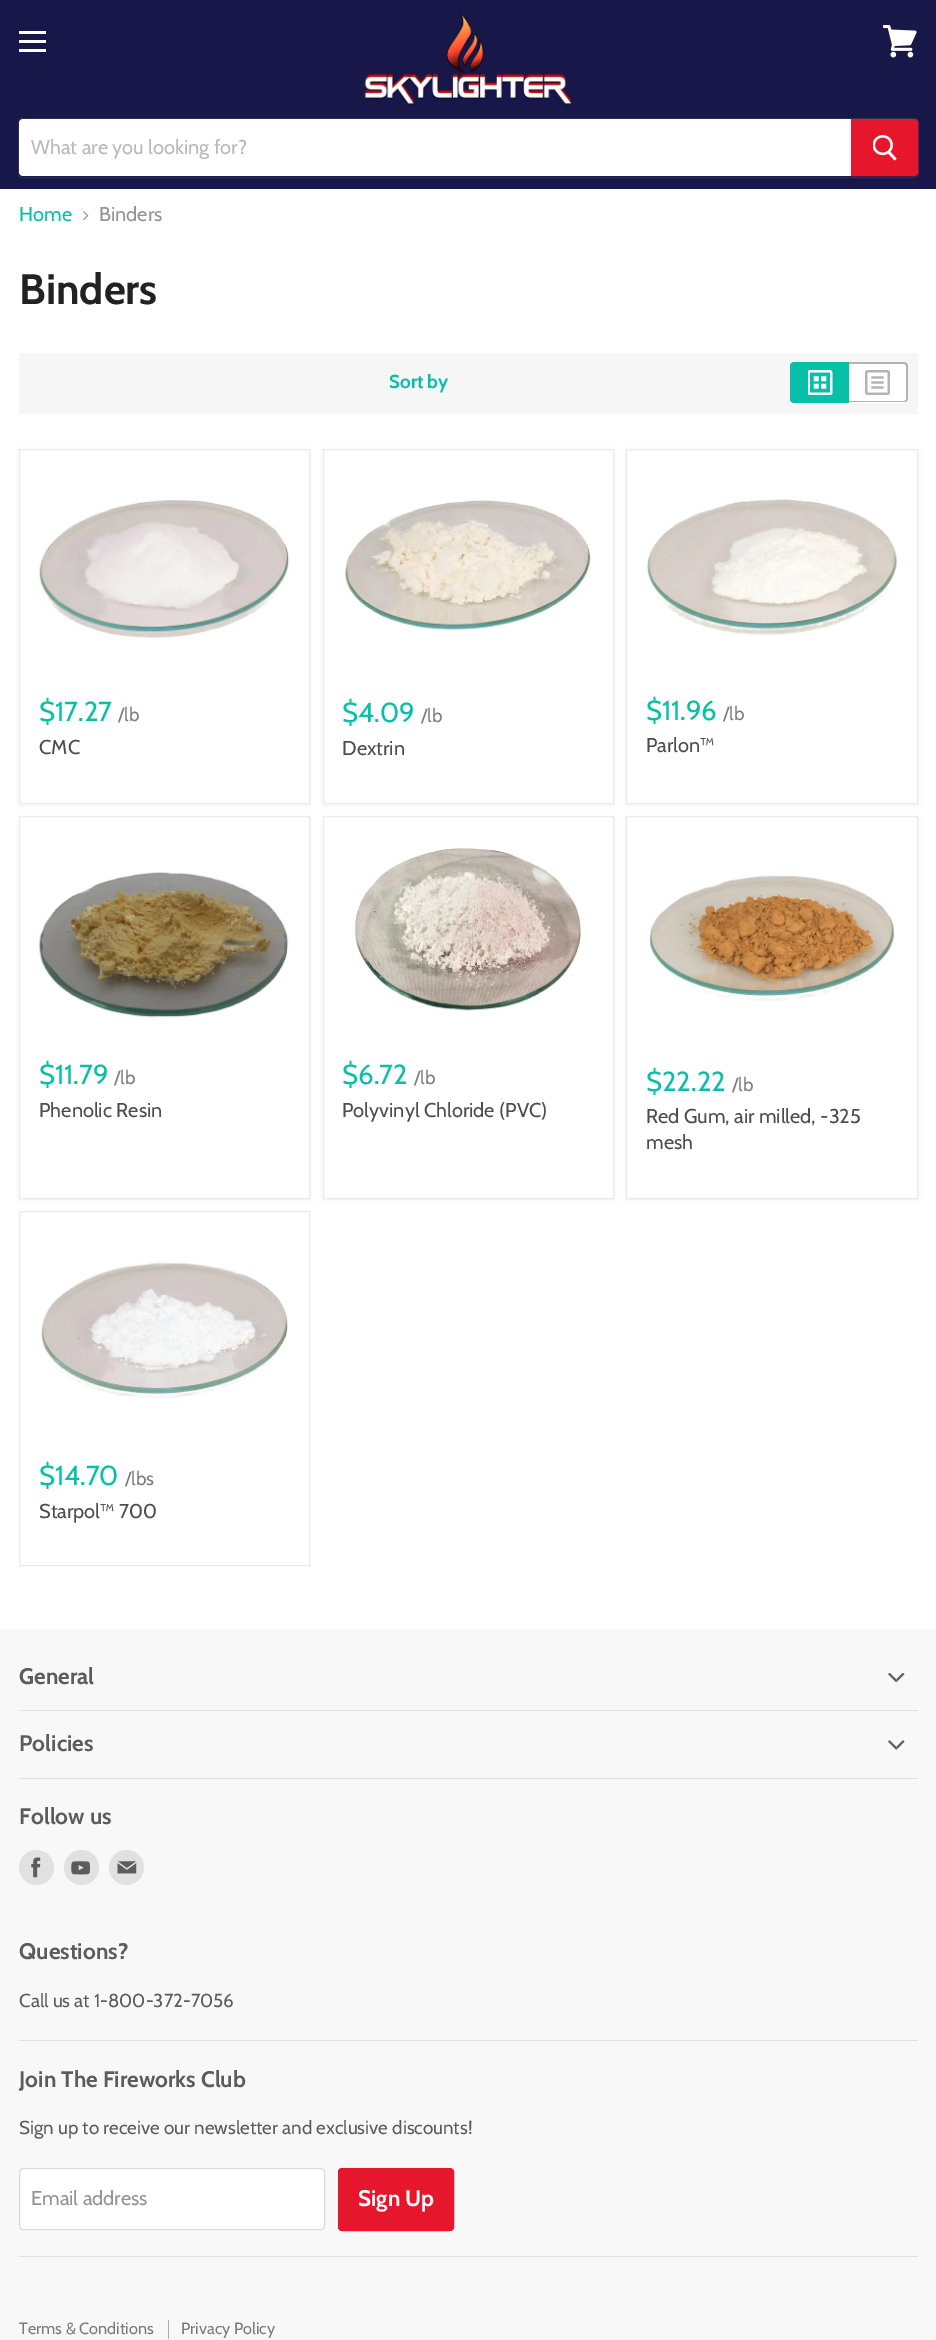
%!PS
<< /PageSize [936 2340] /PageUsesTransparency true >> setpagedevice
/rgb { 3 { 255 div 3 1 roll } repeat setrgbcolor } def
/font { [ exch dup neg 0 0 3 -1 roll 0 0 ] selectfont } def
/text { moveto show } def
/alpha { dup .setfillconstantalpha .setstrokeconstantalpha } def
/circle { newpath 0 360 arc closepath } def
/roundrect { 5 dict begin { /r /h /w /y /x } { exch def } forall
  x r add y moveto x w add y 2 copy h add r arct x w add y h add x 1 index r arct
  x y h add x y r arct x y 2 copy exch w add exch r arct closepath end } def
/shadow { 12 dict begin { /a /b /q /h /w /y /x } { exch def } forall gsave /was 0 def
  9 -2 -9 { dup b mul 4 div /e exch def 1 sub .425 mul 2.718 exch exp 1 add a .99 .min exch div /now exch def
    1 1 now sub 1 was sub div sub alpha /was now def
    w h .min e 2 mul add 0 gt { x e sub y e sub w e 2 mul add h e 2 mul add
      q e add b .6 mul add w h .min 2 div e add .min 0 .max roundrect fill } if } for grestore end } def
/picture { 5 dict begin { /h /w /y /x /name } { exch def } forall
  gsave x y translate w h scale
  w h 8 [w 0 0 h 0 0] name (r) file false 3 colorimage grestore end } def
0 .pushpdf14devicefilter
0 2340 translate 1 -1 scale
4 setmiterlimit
255 255 255 rgb
0 0 936 2340 rectfill
23 23 74 rgb
0 0 936 189 rectfill
255 255 255 rgb
19 31 27 3 rectfill
19 40 27 3 rectfill
19 49 27 3 rectfill
(img_01.rgb) 883 25 34 33 picture
(img_02.rgb) 364 13 208 93 picture
0.2 alpha
127 127 127 rgb
22 118.5 moveto 892 0 rlineto 2.5 0 4.5 2 4.5 4.5 rcurveto 0 50 rlineto 0 2.5 -2 4.5 -4.5 4.5 rcurveto -892 0 rlineto -2 0 -3.5 -1.5 -3.5 -3.5 rcurveto 0 -52 rlineto 0 -2 1.5 -3.5 3.5 -3.5 rcurveto closepath stroke
1 alpha
255 255 255 rgb
23 119 moveto 828 0 rlineto 0 57 rlineto -828 0 rlineto -2 0 -4 -2 -4 -4 rcurveto 0 -49 rlineto 0 -2 2 -4 4 -4 rcurveto closepath fill
230 23 45 rgb
851.5 119.5 moveto 62.5 0 rlineto 2 0 3.5 1.5 3.5 3.5 rcurveto 0 49 rlineto 0 2 -1.5 3.5 -3.5 3.5 rcurveto -62.5 0 rlineto closepath gsave fill grestore
stroke
(img_03.rgb) 873 135 24 26 picture
(img_04.rgb) 83 211 6 9 picture
246 246 246 rgb
19 353 899 61 rectfill
8 191 167 rgb
794 363 moveto 55 0 rlineto 0 40 rlineto -55 0 rlineto -2 0 -4 -2 -4 -4 rcurveto 0 -32 rlineto 0 -2 2 -4 4 -4 rcurveto closepath fill
794 362 moveto 55 0 rlineto 0 40 rlineto -55 0 rlineto -2 0 -4 -1 -4 -3 rcurveto 0 -33 rlineto 0 -2 2 -4 4 -4 rcurveto closepath 794 364 moveto 55 0 rlineto 0 37 rlineto -55 0 rlineto -2 0 -3 -1 -3 -2 rcurveto 0 -33 rlineto 0 -1 1 -2 3 -2 rcurveto closepath eofill
(img_05.rgb) 808 370 25 25 picture
255 255 255 rgb
849 363 moveto 55 0 rlineto 2 0 4 2 4 4 rcurveto 0 32 rlineto 0 2 -2 4 -4 4 rcurveto -55 0 rlineto closepath fill
179 179 179 rgb
849 362 moveto 55 0 rlineto 2 0 4 2 4 4 rcurveto 0 33 rlineto 0 2 -2 3 -4 3 rcurveto -55 0 rlineto closepath 849 364 moveto 55 0 rlineto 1 0 2 1 2 2 rcurveto 0 33 rlineto 0 1 -1 2 -2 2 rcurveto -55 0 rlineto closepath eofill
(img_06.rgb) 865 370 25 25 picture
127 127 127 rgb
19 450 291 355 0 2.5 0.11 shadow
255 255 255 rgb
19.5 449.5 moveto 290 0 rlineto 0 354 rlineto -290 0 rlineto closepath gsave fill grestore
235 235 235 rgb
stroke
(img_07.rgb) 39 500 251 139 picture
127 127 127 rgb
323 450 291 355 0 2.5 0.11 shadow
255 255 255 rgb
323.5 449.5 moveto 290 0 rlineto 0 354 rlineto -290 0 rlineto closepath gsave fill grestore
235 235 235 rgb
stroke
(img_08.rgb) 345 500 247 130 picture
127 127 127 rgb
626 450 292 355 0 2.5 0.11 shadow
255 255 255 rgb
626.5 449.5 moveto 291 0 rlineto 0 354 rlineto -291 0 rlineto closepath gsave fill grestore
235 235 235 rgb
stroke
(img_09.rgb) 647 498 250 138 picture
127 127 127 rgb
19 818 291 382 0 2.5 0.11 shadow
255 255 255 rgb
19.5 816.5 moveto 290 0 rlineto 0 382 rlineto -290 0 rlineto closepath gsave fill grestore
235 235 235 rgb
stroke
(img_10.rgb) 39 872 250 146 picture
127 127 127 rgb
323 818 291 382 0 2.5 0.11 shadow
255 255 255 rgb
323.5 816.5 moveto 290 0 rlineto 0 382 rlineto -290 0 rlineto closepath gsave fill grestore
235 235 235 rgb
stroke
(img_11.rgb) 354 848 227 163 picture
127 127 127 rgb
626 818 292 382 0 2.5 0.11 shadow
255 255 255 rgb
626.5 816.5 moveto 291 0 rlineto 0 382 rlineto -291 0 rlineto closepath gsave fill grestore
235 235 235 rgb
stroke
(img_12.rgb) 649 875 246 126 picture
234 234 234 rgb
19.5 1211.5 290 354 rectstroke
(img_13.rgb) 41 1262 247 136 picture
248 248 248 rgb
0 1629 936 711 rectfill
225 225 225 rgb
19 1710 899 1 rectfill
(img_14.rgb) 888 1673 17 10 picture
19 1778 899 1 rectfill
(img_15.rgb) 888 1740 17 10 picture
19 2040 899 1 rectfill
36.5 1867.5 17.5 circle fill
(img_16.rgb) 31 1857 10 21 picture
81.5 1867.5 17.5 circle fill
(img_17.rgb) 71 1861 19 14 picture
126.5 1867.5 17.5 circle fill
(img_18.rgb) 117 1861 20 13 picture
19 2256 899 1 rectfill
255 255 255 rgb
19.5 2168.5 305 61 3.5 roundrect gsave fill grestore
217 217 217 rgb
stroke
230 23 45 rgb
338.5 2168.5 115 62 3.5 roundrect gsave fill grestore
stroke
170 170 170 rgb
168 2320 1 19 rectfill
/Cabin-Regular 20 font
184 184 184 rgb
(What are you looking for?) 31 154 text
8 191 167 rgb
(Home) 19 221 text
148 148 148 rgb
(Binders) 99 221 text
/Cabin-Bold 42.5 font
34 34 34 rgb
(Binders) 19 304 text
/Cabin-Bold 18.75 font
8 191 167 rgb
(Sort by) 389 388 text
/Cabin-Regular 27.5 font
($17.27) 39 721 text
/Cabin-Regular 19 font
123 123 123 rgb
(/lb) 118 721 text
/Cabin-Regular 20 font
77 77 77 rgb
(CMC) 39 754 text
/Cabin-Regular 27.5 font
8 191 167 rgb
($4.09) 342 722 text
/Cabin-Regular 19 font
123 123 123 rgb
(/lb) 421 722 text
/Cabin-Regular 20 font
77 77 77 rgb
(Dextrin) 342 755 text
/Cabin-Regular 27.5 font
8 191 167 rgb
($11.96) 646 720 text
/Cabin-Regular 19 font
123 123 123 rgb
(/lb) 723 720 text
/Cabin-Regular 20 font
77 77 77 rgb
(Parlon™) 646 752 text
/Cabin-Regular 27.5 font
8 191 167 rgb
($11.79) 39 1084 text
/Cabin-Regular 19 font
123 123 123 rgb
(/lb) 114 1084 text
/Cabin-Regular 20 font
77 77 77 rgb
(Phenolic Resin) 39 1117 text
/Cabin-Regular 27.5 font
8 191 167 rgb
($6.72) 342 1084 text
/Cabin-Regular 19 font
123 123 123 rgb
(/lb) 414 1084 text
/Cabin-Regular 20 font
77 77 77 rgb
(Polyvinyl Chloride \(PVC\)) 342 1117 text
/Cabin-Regular 27.5 font
8 191 167 rgb
($22.22) 646 1091 text
/Cabin-Regular 19 font
123 123 123 rgb
(/lb) 732 1091 text
/Cabin-Regular 20 font
77 77 77 rgb
(Red Gum, air milled, -325) 646 1123 text
(mesh) 646 1149 text
/Cabin-Regular 27.5 font
8 191 167 rgb
($14.70) 39 1485 text
/Cabin-Regular 19 font
123 123 123 rgb
(/lbs) 125 1485 text
/Cabin-Regular 20 font
77 77 77 rgb
(Starpol™ 700) 39 1518 text
/Cabin-Bold 22.5 font
92 92 92 rgb
(General) 19 1684 text
(Policies) 19 1751 text
(Follow us) 19 1824 text
(Questions?) 19 1959 text
/Cabin-Regular 18.75 font
(Call us at 1-800-372-7056) 19 2007 text
/Cabin-Bold 22.5 font
(Join The Fireworks Club) 19 2087 text
/Cabin-Regular 18.75 font
(Sign up to receive our newsletter and exclusive discounts!) 19 2134 text
/Cabin-Regular 20 font
148 148 148 rgb
(Email address) 31 2205 text
/Cabin-Bold 22.5 font
255 255 255 rgb
(Sign Up) 358 2206 text
/Cabin-Regular 16.25 font
123 123 123 rgb
(Terms & Conditions) 19 2334 text
(Privacy Policy) 181 2334 text
.poppdf14devicefilter showpage
